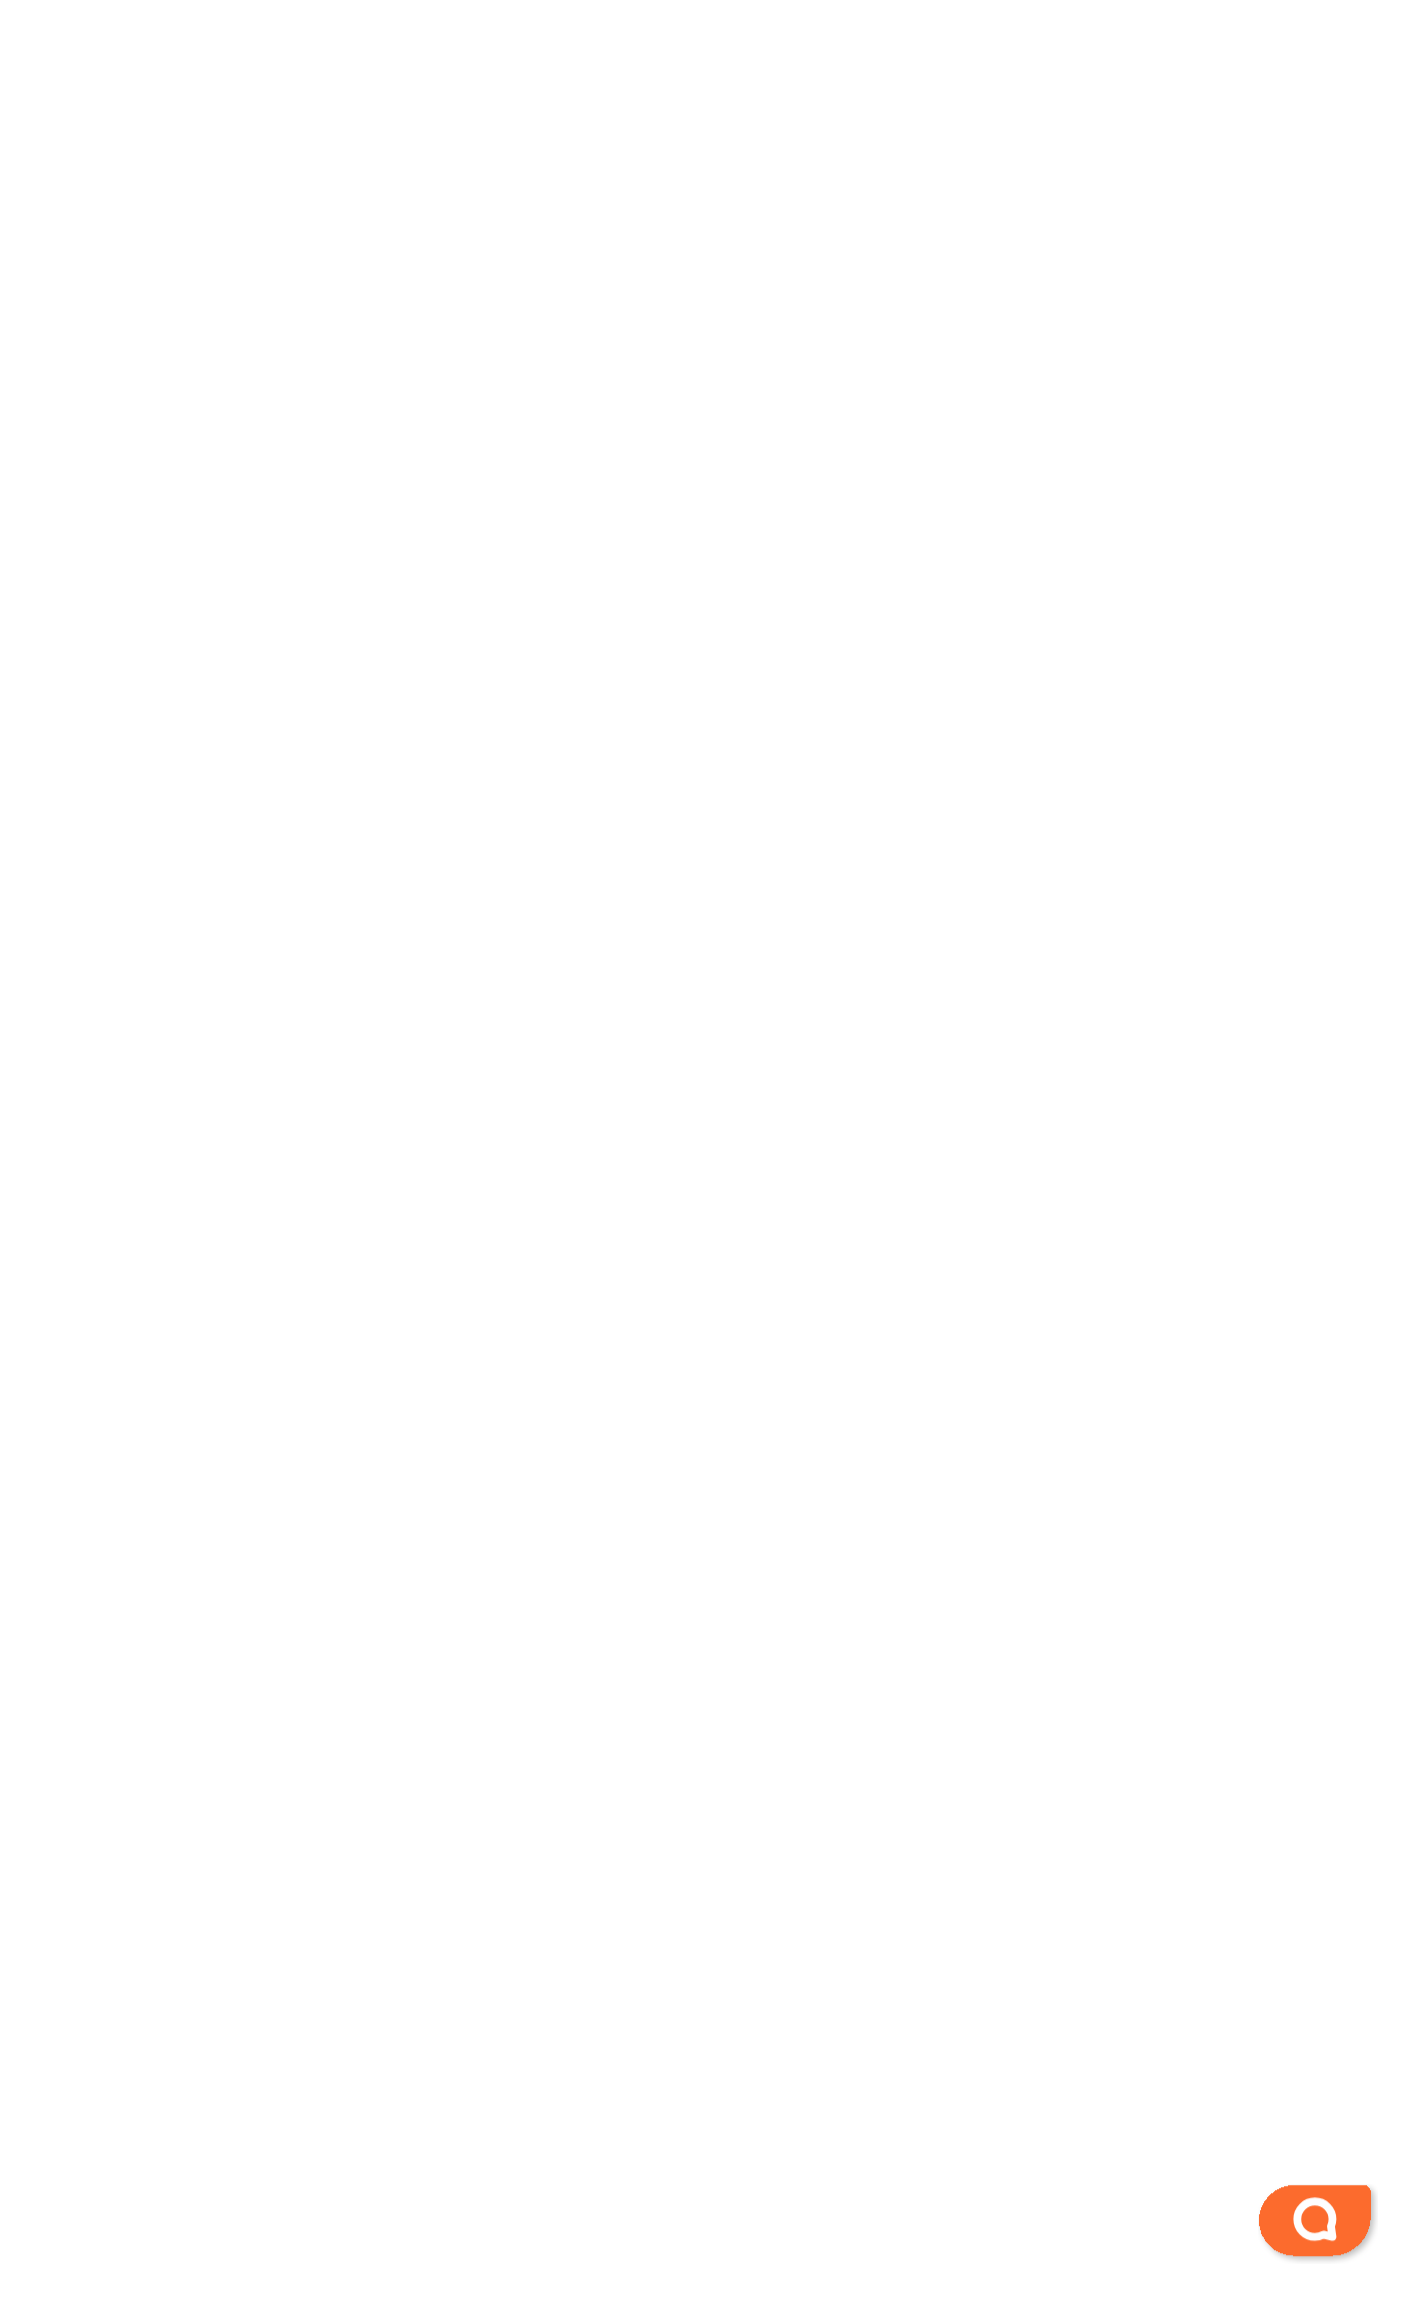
%!PS
<< /PageSize [1419 2305] >> setpagedevice
/rgb { 3 { 255 div 3 1 roll } repeat setrgbcolor } def
/picture { 5 dict begin { /h /w /y /x /name } { exch def } forall
  gsave x y translate w h scale
  w h 8 [w 0 0 h 0 0] name (r) file false 3 colorimage grestore end } def
0 2305 translate 1 -1 scale
4 setmiterlimit
255 255 255 rgb
0 0 1419 2305 rectfill
(img_01.rgb) 1258 2184 120 80 picture
showpage
